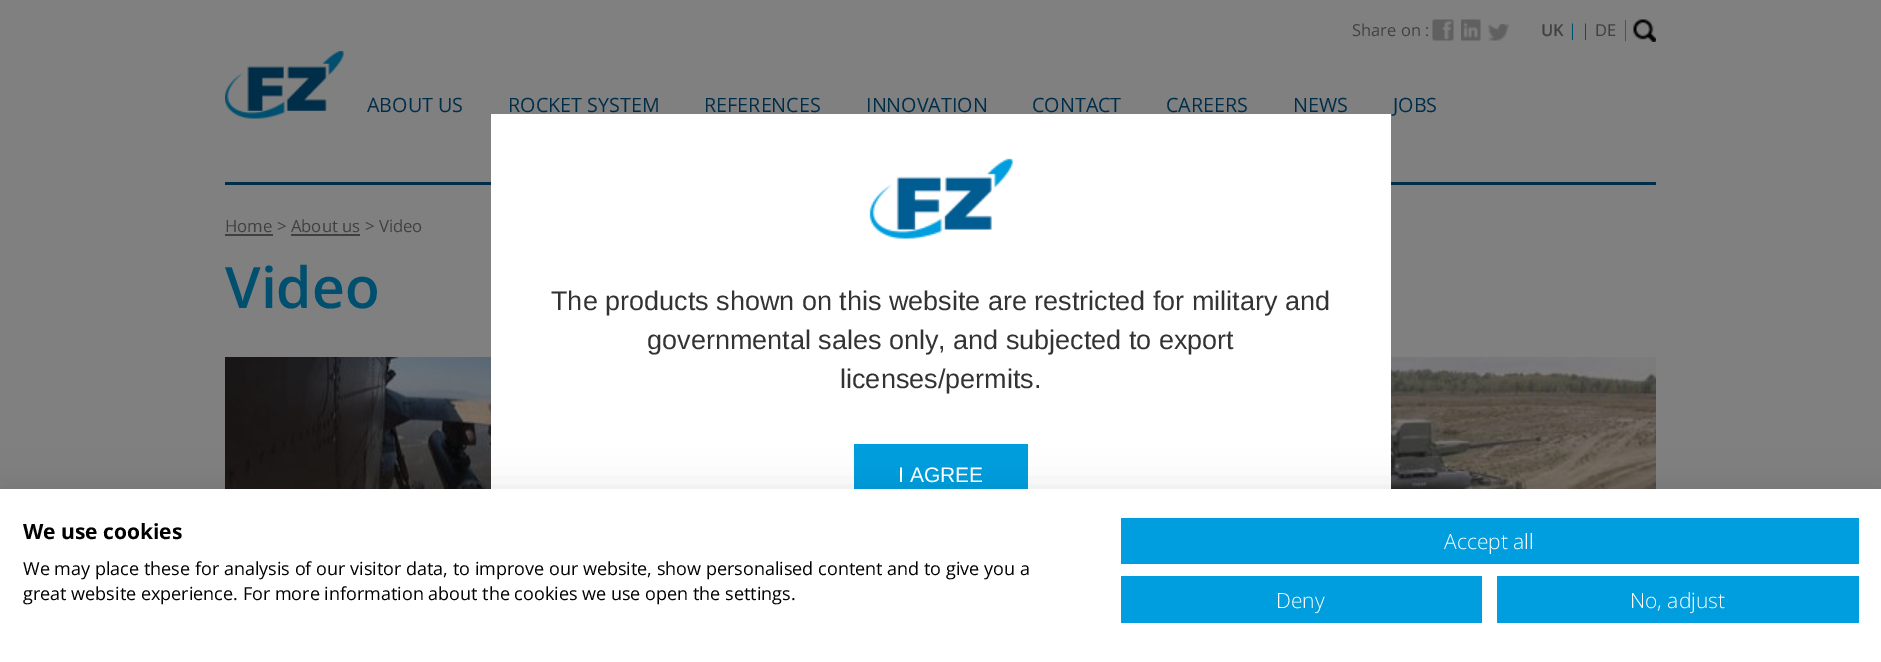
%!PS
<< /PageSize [1881 662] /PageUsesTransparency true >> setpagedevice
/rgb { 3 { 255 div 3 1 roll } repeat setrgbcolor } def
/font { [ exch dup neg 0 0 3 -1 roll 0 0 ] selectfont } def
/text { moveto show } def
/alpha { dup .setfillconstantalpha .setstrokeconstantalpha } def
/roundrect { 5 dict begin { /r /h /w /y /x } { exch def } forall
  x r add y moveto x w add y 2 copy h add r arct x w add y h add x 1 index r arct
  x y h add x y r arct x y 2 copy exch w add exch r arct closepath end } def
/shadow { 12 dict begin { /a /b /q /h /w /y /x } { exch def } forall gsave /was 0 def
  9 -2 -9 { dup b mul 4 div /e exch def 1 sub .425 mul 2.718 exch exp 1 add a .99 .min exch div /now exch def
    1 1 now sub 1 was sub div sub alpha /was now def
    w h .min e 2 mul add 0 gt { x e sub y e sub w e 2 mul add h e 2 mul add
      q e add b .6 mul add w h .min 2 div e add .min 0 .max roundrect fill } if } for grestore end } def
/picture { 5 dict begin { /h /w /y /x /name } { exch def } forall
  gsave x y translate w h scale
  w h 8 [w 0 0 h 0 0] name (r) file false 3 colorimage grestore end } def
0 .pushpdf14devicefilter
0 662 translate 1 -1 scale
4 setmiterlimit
128 128 128 rgb
0 0 1881 662 rectfill
(img_01.rgb) 1432 19 22 22 picture
(img_02.rgb) 1461 19 20 22 picture
(img_03.rgb) 1488 24 21 17 picture
(img_04.rgb) 1633 19 23 23 picture
(img_05.rgb) 225 51 119 68 picture
0 46 73 rgb
225 182 1431 3 rectfill
64 64 64 rgb
225 234 48 2 rectfill
291 234 69 2 rectfill
(img_06.rgb) 225 357 1431 132 picture
255 255 255 rgb
491 114 900 375 rectfill
(img_07.rgb) 869 158 144 81 picture
0 158 222 rgb
854 444 174 45 rectfill
0 0 0 rgb
0 489 1881 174 0 18 0.1 shadow
255 255 255 rgb
0 489 1881 173 rectfill
0 158 222 rgb
1121 518 738 46 rectfill
1121 576 361 47 rectfill
1497 576 362 47 rectfill
/OpenSans-Regular 16.5 font
64 64 64 rgb
(Share on :) 1352 36 text
/OpenSans-SemiBold 16.5 font
(UK) 1541 36 text
/OpenSans-Regular 16.5 font
0 79 111 rgb
(| |) 1568 36 text
64 64 64 rgb
(DE) 1595 36 text
/OpenSans-Light 21 font
(|) 1620 36 text
/OpenSans-Regular 19.75 font
0 46 73 rgb
(ABOUT US) 367 112 text
(ROCKET SYSTEM) 508 112 text
(REFERENCES) 704 112 text
(INNOVATION) 866 112 text
(CONTACT) 1032 112 text
(CAREERS) 1166 112 text
(NEWS) 1293 112 text
(JOBS) 1393 112 text
/OpenSans-Regular 16.75 font
64 64 64 rgb
(Home > About us > Video) 225 232 text
/OpenSans-SemiBold 57 font
0 79 111 rgb
(Video) 225 308 text
/LiberationSans-Regular 27 font
51 51 51 rgb
(The products shown on this website are restricted for military and) 551 310 text
(governmental sales only, and subjected to export) 647 349 text
(licenses/permits.) 840 388 text
/LiberationSans-Regular 21 font
255 255 255 rgb
(I AGREE) 898 482 text
/OpenSans-Bold 21 font
0 0 0 rgb
(We use cookies) 23 539 text
/OpenSans-Regular 18 font
(We may place these for analysis of our visitor data, to improve our website, show personalised content and to give you a) 23 575 text
(great website experience. For more information about the cookies we use open the settings.) 23 600 text
/OpenSans-Light 21 font
255 255 255 rgb
(Accept all) 1444 549 text
(Deny) 1276 608 text
(No, adjust) 1630 608 text
.poppdf14devicefilter showpage
